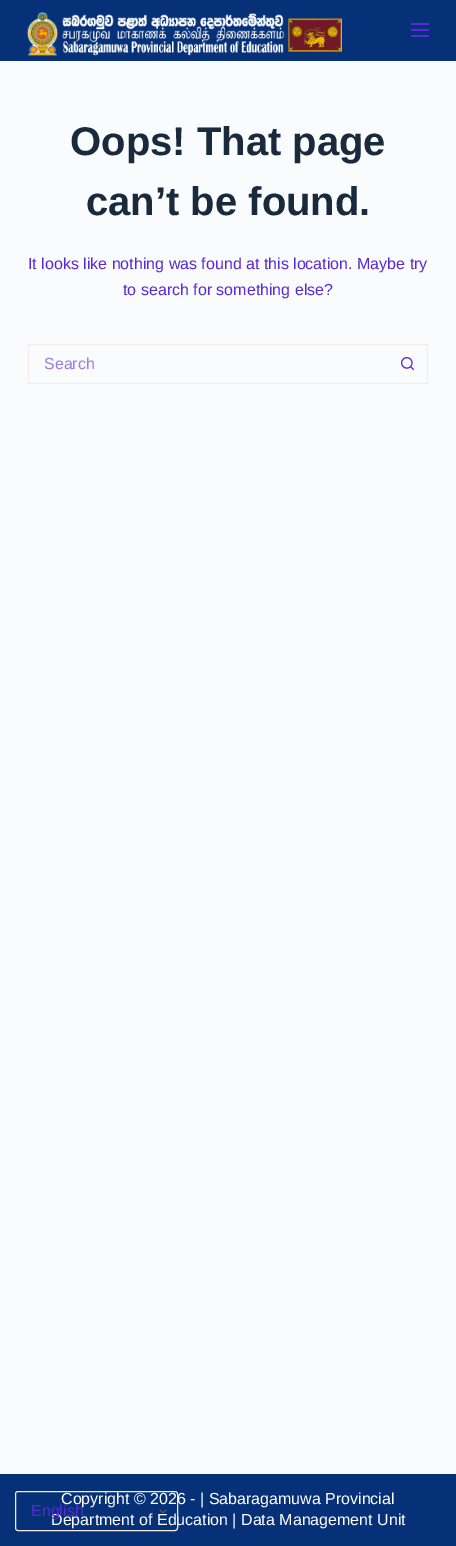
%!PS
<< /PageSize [456 1546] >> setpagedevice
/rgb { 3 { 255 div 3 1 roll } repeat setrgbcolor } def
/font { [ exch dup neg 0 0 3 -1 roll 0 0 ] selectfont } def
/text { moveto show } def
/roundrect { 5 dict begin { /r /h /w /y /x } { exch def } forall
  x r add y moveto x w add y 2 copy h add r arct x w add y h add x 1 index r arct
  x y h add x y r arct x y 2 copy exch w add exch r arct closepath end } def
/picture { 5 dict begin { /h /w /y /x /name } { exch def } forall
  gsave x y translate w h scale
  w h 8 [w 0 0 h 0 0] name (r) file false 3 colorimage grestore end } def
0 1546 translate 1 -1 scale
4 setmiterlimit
250 251 252 rgb
0 0 456 1546 rectfill
6 49 120 rgb
0 0 456 61 rectfill
(img_01.rgb) 27 12 315 44 picture
87 41 215 rgb
411 23 18 2 1 roundrect fill
411 29 18 2 1 roundrect fill
411 35 18 2 1 roundrect fill
245 235 228 rgb
31 344 moveto 357 0 rlineto 0 40 rlineto -357 0 rlineto -2 0 -3 -1 -3 -3 rcurveto 0 -34 rlineto 0 -2 1 -3 3 -3 rcurveto closepath 31 345 moveto 357 0 rlineto 0 38 rlineto -358 0 rlineto -2 -2 -1 -7 -1 -8 rcurveto 0 -28 rlineto 1 -2 rlineto closepath eofill
388 344 moveto 37 0 rlineto 2 0 3 1 3 3 rcurveto 0 34 rlineto 0 2 -1 3 -3 3 rcurveto -37 0 rlineto closepath 388 345 moveto 37 0 rlineto 1 0 2 1 2 2 rcurveto 0 34 rlineto 0 1 -1 2 -2 2 rcurveto -37 0 rlineto closepath eofill
(img_02.rgb) 401 357 13 13 picture
6 49 120 rgb
0 1474 456 72 rectfill
(img_03.rgb) 159 1509 8 4 picture
/LiberationSans-Bold 40 font
25 42 61 rgb
(Oops! That page) 70 155 text
(can’t be found.) 86 215 text
/LiberationSans-Regular 16 font
87 41 215 rgb
(It looks like nothing was found at this location. Maybe try) 28 269 text
(to search for something else?) 123 295 text
152 125 230 rgb
(Search) 44 369 text
255 255 255 rgb
(Copyright © 2026 - | Sabaragamuwa Provincial) 61 1504 text
(Department of Education | Data Management Unit) 51 1525 text
245 235 228 rgb
15.5 1491.5 162 39 2.5 roundrect stroke
87 41 215 rgb
(English) 31 1516 text
showpage
